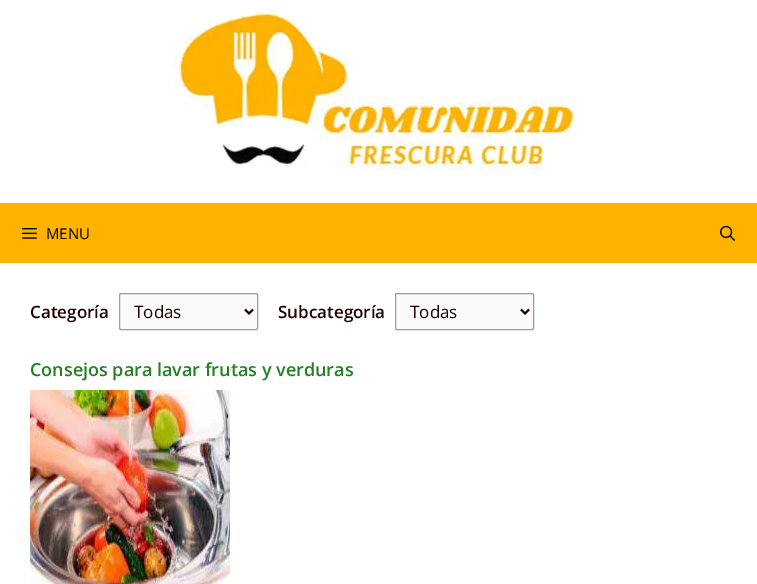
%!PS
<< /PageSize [757 584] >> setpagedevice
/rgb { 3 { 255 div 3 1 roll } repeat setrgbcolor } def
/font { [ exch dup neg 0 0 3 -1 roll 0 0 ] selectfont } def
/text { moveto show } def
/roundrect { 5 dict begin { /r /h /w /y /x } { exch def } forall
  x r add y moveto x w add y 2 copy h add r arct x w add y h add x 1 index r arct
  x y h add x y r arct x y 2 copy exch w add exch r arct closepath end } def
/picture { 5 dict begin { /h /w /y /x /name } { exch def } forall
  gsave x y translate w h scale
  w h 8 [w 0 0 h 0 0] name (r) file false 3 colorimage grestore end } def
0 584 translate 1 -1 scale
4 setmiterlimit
255 255 255 rgb
0 0 757 584 rectfill
(img_01.rgb) 174 8 401 162 picture
255 179 0 rgb
0 203 757 60 rectfill
(img_02.rgb) 22 228 15 11 picture
(img_03.rgb) 720 225 15 16 picture
250 250 250 rgb
119.5 293.5 138 36 1.5 roundrect gsave fill grestore
157 157 157 rgb
stroke
33 0 0 rgb
2 setlinewidth
245 309.5 moveto 4 4 rlineto 4 -4 rlineto stroke
250 250 250 rgb
395.5 293.5 138 36 1.5 roundrect gsave fill grestore
157 157 157 rgb
1 setlinewidth
stroke
33 0 0 rgb
2 setlinewidth
521 309.5 moveto 4 4 rlineto 4 -4 rlineto stroke
(img_04.rgb) 30 390 200 194 picture
/OpenSans-Regular 15 font
0 0 0 rgb
(MENU) 46 239 text
/OpenSans-SemiBold 17 font
33 0 0 rgb
(Categoría) 30 318 text
/OpenSans-Regular 17 font
(Todas) 134 318 text
/OpenSans-SemiBold 17 font
(Subcategoría) 278 318 text
/OpenSans-Regular 17 font
(Todas) 410 318 text
/OpenSans-SemiBold 18 font
34 127 34 rgb
(Consejos para lavar frutas y verduras) 30 376 text
showpage
